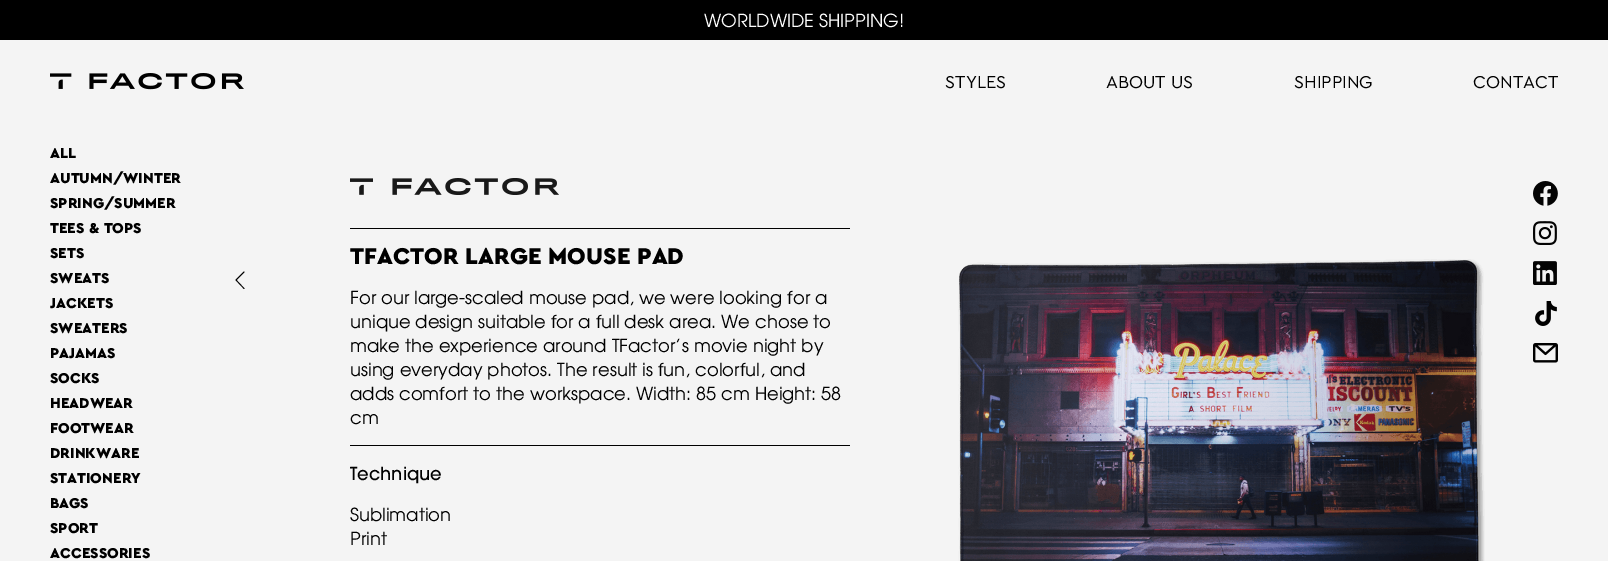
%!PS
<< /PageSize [1608 561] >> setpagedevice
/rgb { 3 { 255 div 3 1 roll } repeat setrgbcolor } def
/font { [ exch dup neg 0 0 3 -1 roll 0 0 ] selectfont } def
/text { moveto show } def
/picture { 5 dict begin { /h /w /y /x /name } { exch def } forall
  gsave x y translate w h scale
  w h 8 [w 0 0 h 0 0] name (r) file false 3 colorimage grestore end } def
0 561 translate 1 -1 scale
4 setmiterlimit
244 244 244 rgb
0 0 1608 561 rectfill
0 0 0 rgb
0 0 1608 40 rectfill
(img_01.rgb) 50 73 194 17 picture
(img_02.rgb) 350 178 209 17 picture
350 228 500 1 rectfill
350 445 500 1 rectfill
(img_03.rgb) 958 259 527 302 picture
0.8 setlinewidth
1 setlinecap
1 setlinejoin
236 280 moveto 8 -8 rlineto 236 280 moveto 8 8.5 rlineto stroke
(img_04.rgb) 1533 181 25 25 picture
(img_05.rgb) 1533 221 24 24 picture
(img_06.rgb) 1533 261 24 24 picture
(img_07.rgb) 1535 301 22 25 picture
(img_08.rgb) 1533 343 25 20 picture
/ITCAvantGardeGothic-Regular 18 font
255 255 255 rgb
(WORLDWIDE SHIPPING!) 704 27 text
/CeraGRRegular-Regular 18 font
0 0 0 rgb
(STYLES) 945 88 text
(ABOUT US) 1106 88 text
(SHIPPING) 1294 88 text
(CONTACT) 1473 88 text
/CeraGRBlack-Black 15 font
(ALL) 50 158 text
(AUTUMN/WINTER) 50 183 text
(SPRING/SUMMER) 50 208 text
(TEES & TOPS) 50 233 text
(SETS) 50 258 text
(SWEATS) 50 283 text
(JACKETS) 50 308 text
(SWEATERS) 50 333 text
(PAJAMAS) 50 358 text
(SOCKS) 50 383 text
(HEADWEAR) 50 408 text
(FOOTWEAR) 50 433 text
(DRINKWARE) 50 458 text
(STATIONERY) 50 483 text
(BAGS) 50 508 text
(SPORT) 50 533 text
(ACCESSORIES) 50 558 text
/CeraGRBlack-Black 24 font
(TFACTOR LARGE MOUSE PAD) 350 264 text
/ITCAvantGardeGothic-Regular 18 font
(For our large-scaled mouse pad, we were looking for a) 350 304 text
(unique design suitable for a full desk area. We chose to) 350 328 text
(make the experience around TFactor’s movie night by) 350 352 text
(using everyday photos. The result is fun, colorful, and) 350 376 text
(adds comfort to the workspace. Width: 85 cm Height: 58) 350 400 text
(cm) 350 424 text
/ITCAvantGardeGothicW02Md-Medium 18 font
(Technique) 350 480 text
/ITCAvantGardeGothic-Regular 18 font
(Sublimation) 350 521 text
(Print) 350 545 text
showpage
